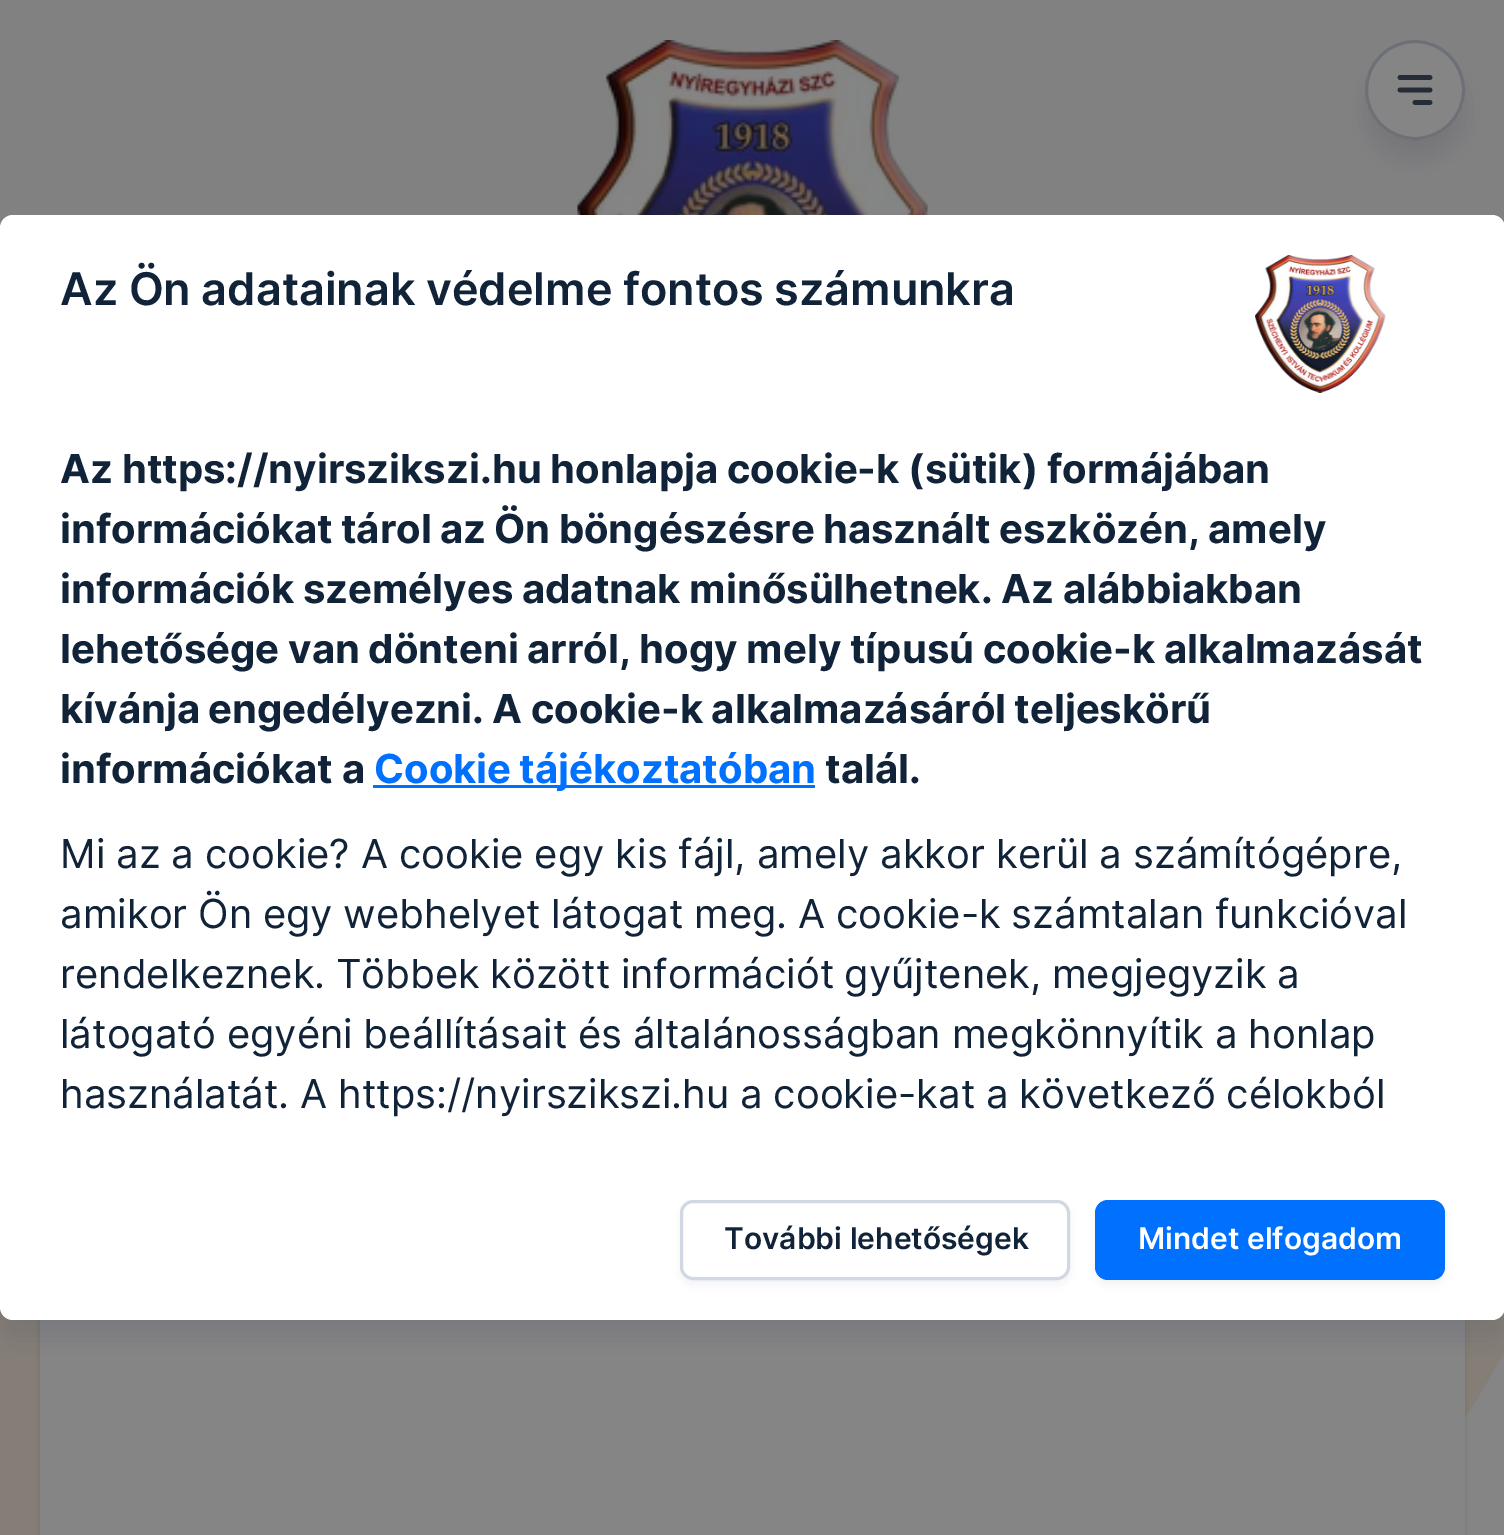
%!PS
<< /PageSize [1504 1535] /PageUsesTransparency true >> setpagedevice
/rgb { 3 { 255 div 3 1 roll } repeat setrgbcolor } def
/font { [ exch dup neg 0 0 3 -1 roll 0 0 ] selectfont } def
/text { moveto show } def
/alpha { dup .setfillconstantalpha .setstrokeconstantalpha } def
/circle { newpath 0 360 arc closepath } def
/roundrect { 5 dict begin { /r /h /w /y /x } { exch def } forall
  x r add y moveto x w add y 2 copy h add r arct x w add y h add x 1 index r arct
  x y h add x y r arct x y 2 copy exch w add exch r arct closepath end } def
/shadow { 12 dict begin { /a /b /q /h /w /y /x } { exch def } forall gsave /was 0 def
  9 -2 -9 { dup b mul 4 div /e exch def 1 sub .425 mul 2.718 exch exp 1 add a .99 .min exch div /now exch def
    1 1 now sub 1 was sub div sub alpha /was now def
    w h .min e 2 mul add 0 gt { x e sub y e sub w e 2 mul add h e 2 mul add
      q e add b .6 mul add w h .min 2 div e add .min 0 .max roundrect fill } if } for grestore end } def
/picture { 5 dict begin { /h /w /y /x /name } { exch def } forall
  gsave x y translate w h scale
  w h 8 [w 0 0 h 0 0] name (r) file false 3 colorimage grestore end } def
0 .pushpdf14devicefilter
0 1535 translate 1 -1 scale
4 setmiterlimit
133 133 133 rgb
0 0 1504 1535 rectfill
129 129 130 rgb
0 0 1504 228 rectfill
(img_01.rgb) 577 40 351 175 picture
132 126 118 rgb
0 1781 moveto 0 -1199 rlineto 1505 0 rlineto 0 769 rlineto -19 33 rlineto -74 127 -171 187 -268 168 rcurveto -133 -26 rlineto -163 -33 -327 -16 -488 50 rcurveto -31 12 12 -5 -46 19 rcurveto -71 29 -141 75 -207 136 rcurveto -33 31 rlineto -82 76 -174 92 -261 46 rcurveto closepath fill
5 16 35 rgb
40 1098 1425 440 0 1 0.08 shadow
40 1105 1425 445 0 5 0.1 shadow
133 133 133 rgb
40 1320 1425 215 rectfill
5 16 35 rgb
1365 60 100 100 50 12.5 0.1 shadow
133 133 133 rgb
1415 90 50 circle fill
0.2 alpha
12 32 54 rgb
3 setlinewidth
1415 90 48.5 circle stroke
1 alpha
(img_02.rgb) 1397 75 36 30 picture
10 31 68 rgb
0 235 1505 1105 13 12.5 0.1 shadow
255 255 255 rgb
0 215 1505 1105 13 roundrect fill
(img_03.rgb) 1255 255 131 138 picture
0 112 255 rgb
373 785 442 3 rectfill
20 50 80 rgb
680 1205 390 80 13 4 0.05 shadow
255 255 255 rgb
681.5 1201.5 387 77 11.5 roundrect gsave fill grestore
209 216 225 rgb
stroke
20 50 80 rgb
1095 1205 350 80 13 4 0.05 shadow
0 112 255 rgb
1095 1200 350 80 13 roundrect fill
/Inter-SemiBold 45 font
17 35 56 rgb
60 305 moveto -0.5 0 32 (Az Ön adatainak védelme fontos számunkra) widthshow
/Inter-Bold 40 font
60 483 moveto -0.5 0 32 (Az https://nyirszikszi.hu honlapja cookie-k \(sütik\) formájában) widthshow
60 543 moveto -1 0 32 (információkat tárol az Ön böngészésre használt eszközén, amely) widthshow
60 603 moveto -0.5 0 32 (információk személyes adatnak minősülhetnek. Az alábbiakban) widthshow
60 663 moveto -0.5 0 32 (lehetősége van dönteni arról, hogy mely típusú cookie-k alkalmazását) widthshow
60 723 moveto -1 0 32 (kívánja engedélyezni. A cookie-k alkalmazásáról teljeskörű) widthshow
(információkat a) 60 783 text
0 112 255 rgb
374 783 moveto -1 0 32 (Cookie tájékoztatóban) widthshow
17 35 56 rgb
(talál.) 825 783 text
/Inter-Regular 40 font
60 868 moveto -0.25 0 32 (Mi az a cookie? A cookie egy kis fájl, amely akkor kerül a számítógépre,) widthshow
60 928 moveto -0.5 0 32 (amikor Ön egy webhelyet látogat meg. A cookie-k számtalan funkcióval) widthshow
60 988 moveto -1 0 32 (rendelkeznek. Többek között információt gyűjtenek, megjegyzik a) widthshow
60 1048 moveto -0.5 0 32 (látogató egyéni beállításait és általánosságban megkönnyítik a honlap) widthshow
60 1108 moveto -0.5 0 32 (használatát. A https://nyirszikszi.hu a cookie-kat a következő célokból) widthshow
/Inter-SemiBold 30 font
(További lehetőségek) 724 1249 text
255 255 255 rgb
(Mindet elfogadom) 1138 1249 text
.poppdf14devicefilter showpage
